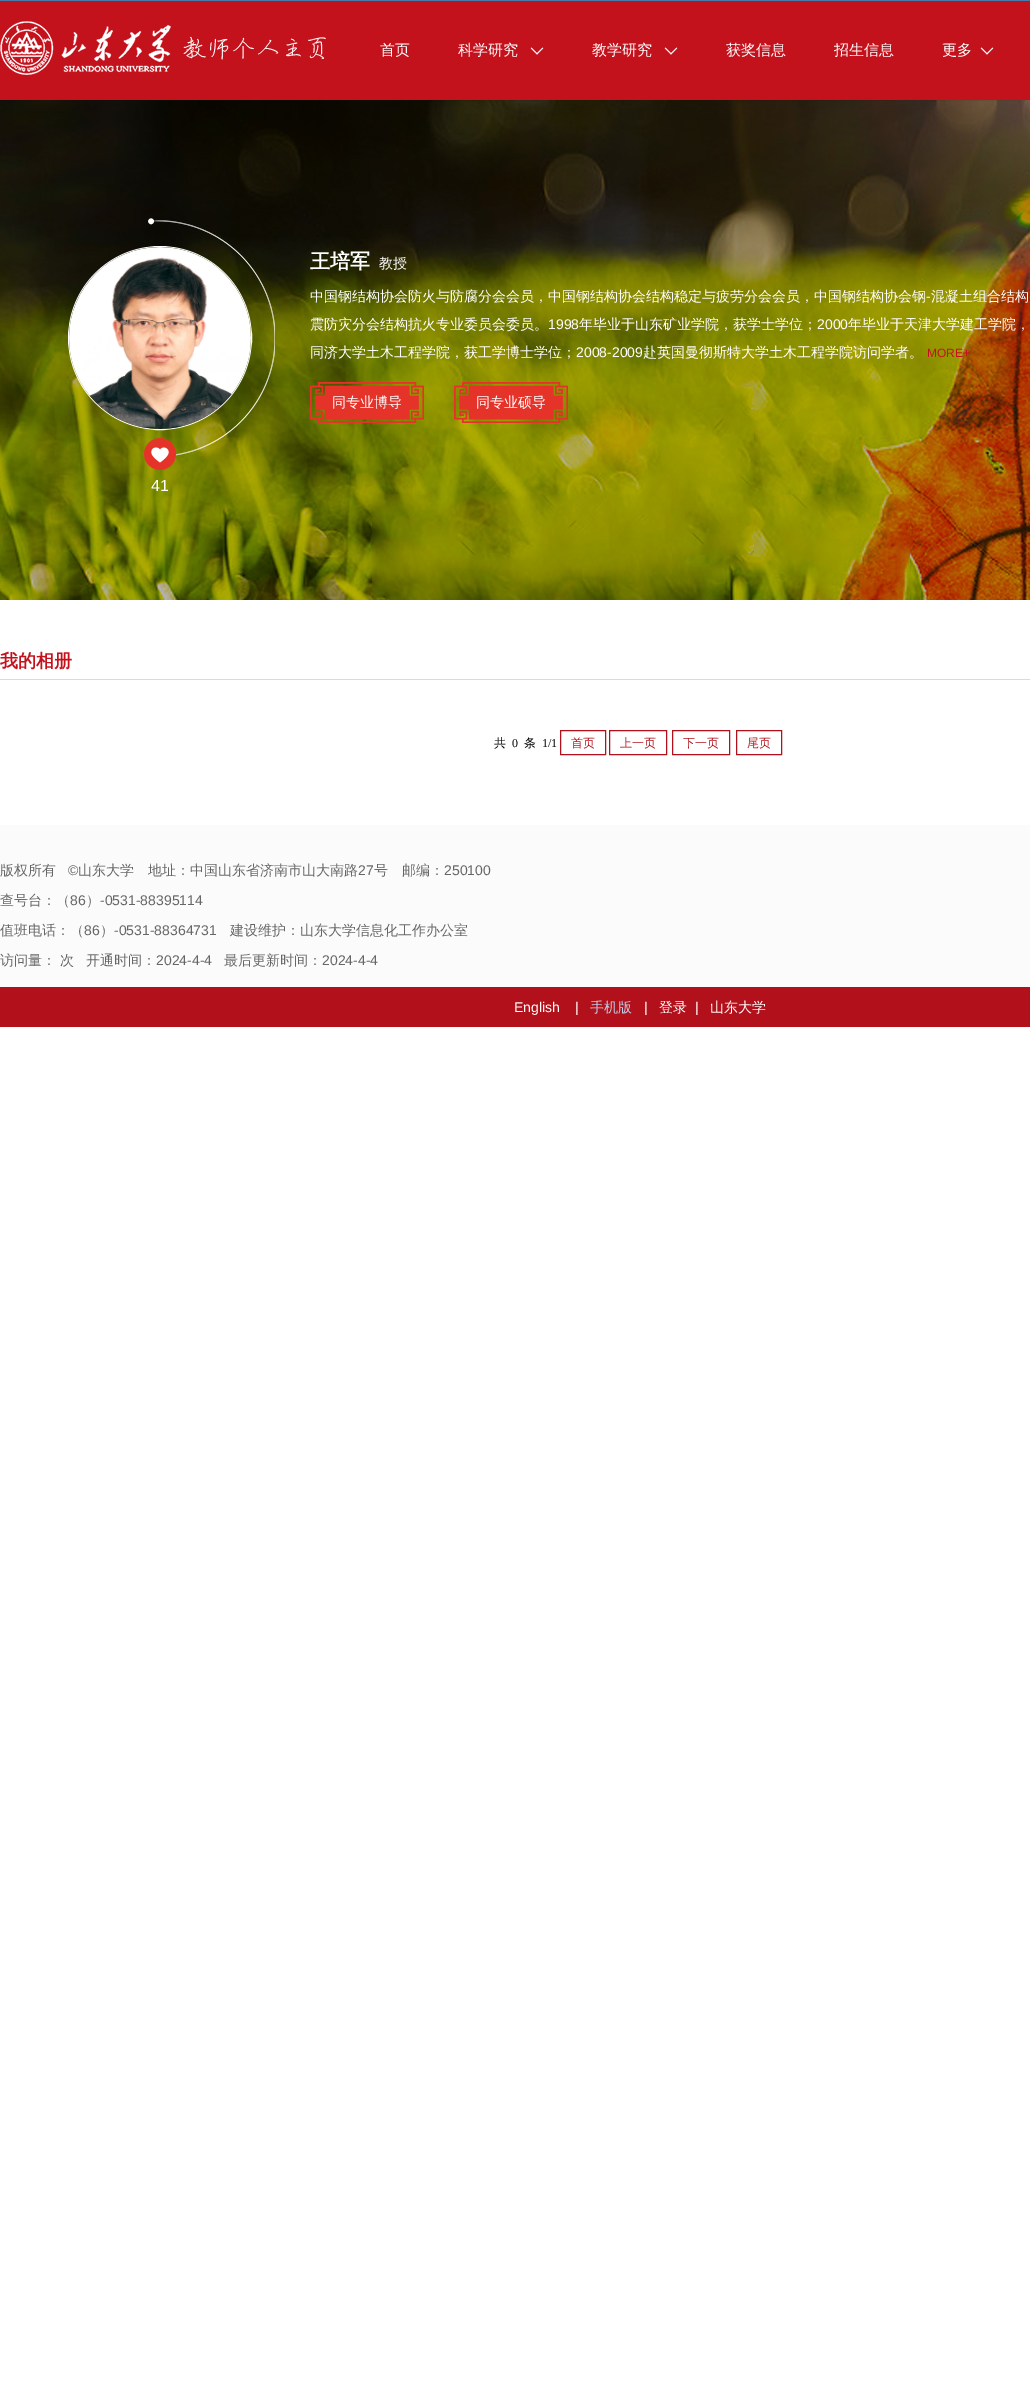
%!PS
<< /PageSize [1030 2407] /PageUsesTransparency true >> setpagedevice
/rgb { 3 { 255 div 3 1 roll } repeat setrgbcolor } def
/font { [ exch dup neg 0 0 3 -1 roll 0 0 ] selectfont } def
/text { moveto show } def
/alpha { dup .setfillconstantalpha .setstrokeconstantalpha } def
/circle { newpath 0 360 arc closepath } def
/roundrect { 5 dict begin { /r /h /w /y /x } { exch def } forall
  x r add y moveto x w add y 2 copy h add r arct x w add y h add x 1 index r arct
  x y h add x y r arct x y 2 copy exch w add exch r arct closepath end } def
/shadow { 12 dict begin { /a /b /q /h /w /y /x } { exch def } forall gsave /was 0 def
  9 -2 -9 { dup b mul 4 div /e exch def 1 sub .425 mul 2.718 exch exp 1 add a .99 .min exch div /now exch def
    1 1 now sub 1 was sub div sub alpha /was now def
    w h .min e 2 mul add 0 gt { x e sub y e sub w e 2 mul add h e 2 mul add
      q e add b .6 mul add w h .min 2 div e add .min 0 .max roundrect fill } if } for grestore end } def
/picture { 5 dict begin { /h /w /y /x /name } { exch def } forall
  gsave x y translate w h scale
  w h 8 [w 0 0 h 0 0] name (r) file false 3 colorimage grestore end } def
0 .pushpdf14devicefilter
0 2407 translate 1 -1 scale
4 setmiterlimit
255 255 255 rgb
0 0 1030 2407 rectfill
(img_03.rgb) 0 100 1030 500 picture
0 0 0 rgb
0 0 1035 100 0 1.5 0.13 shadow
196 18 29 rgb
0 1 1030 99 rectfill
73 122 172 rgb
0 0 1030 1 rectfill
(img_01.rgb) 0 21 326 54 picture
(img_02.rgb) 530 47 14 8 picture
(img_02.rgb) 664 47 14 8 picture
(img_02.rgb) 980 47 14 8 picture
(img_04.rgb) 310 382 114 41 picture
(img_05.rgb) 454 382 114 41 picture
(img_06.rgb) 144 218 131 252 picture
255 255 255 rgb
160 338 91.5 circle stroke
(img_07.rgb) 69 247 182 182 picture
218 218 218 rgb
0 679 1030 1 rectfill
178 16 26 rgb
560.5 730.5 45 24 rectstroke
609.5 730.5 57 24 rectstroke
672.5 730.5 57 24 rectstroke
736.5 730.5 45 24 rectstroke
251 251 251 rgb
0 825 1030 162 rectfill
178 16 26 rgb
0 987 1030 40 rectfill
/WenQuanYiZenHei-Medium 15 font
255 255 255 rgb
(首页) 380 55 text
(科学研究) 458 55 text
(教学研究) 592 55 text
(获奖信息) 726 55 text
(招生信息) 834 55 text
(更多) 942 55 text
/WenQuanYiZenHei-Bold 20 font
(王培军) 310 268 text
/WenQuanYiZenHei-Medium 14 font
(教授) 379 268 text
(中国钢结构协会防火与防腐分会会员，中国钢结构协会结构稳定与疲劳分会会员，中国钢结构协会钢) 310 301 text
/LiberationSans-Regular 14 font
(-) 926 301 text
/WenQuanYiZenHei-Medium 14 font
(混凝土组合结构) 931 301 text
(震防灾分会结构抗火专业委员会委员。) 310 329 text
/LiberationSans-Regular 14 font
(1998) 548 329 text
/WenQuanYiZenHei-Medium 14 font
(年毕业于山东矿业学院，获学士学位；) 579 329 text
/LiberationSans-Regular 14 font
(2000) 817 329 text
/WenQuanYiZenHei-Medium 14 font
(年毕业于天津大学建工学院，) 848 329 text
(同济大学土木工程学院，获工学博士学位；) 310 357 text
/LiberationSans-Regular 14 font
(2008-2009) 576 357 text
/WenQuanYiZenHei-Medium 14 font
(赴英国曼彻斯特大学土木工程学院访问学者。) 643 357 text
/LiberationSans-Regular 12 font
196 18 29 rgb
(MORE+) 927 357 text
/WenQuanYiZenHei-Medium 14 font
255 255 255 rgb
(同专业博导) 332 407 text
(同专业硕导) 476 407 text
/LiberationSans-Regular 16 font
(41) 151 491 text
/WenQuanYiZenHei-Bold 18 font
196 18 29 rgb
(我的相册) 0 667 text
/WenQuanYiZenHei-Medium 12 font
0 0 0 rgb
(共) 494 747 text
/LiberationSerif-Regular 12 font
(0) 512 747 text
/WenQuanYiZenHei-Medium 12 font
(条) 524 747 text
/LiberationSerif-Regular 12 font
(1/1) 542 747 text
/WenQuanYiZenHei-Medium 12 font
178 16 26 rgb
(首页) 571 747 text
(上一页) 620 747 text
(下一页) 683 747 text
(尾页) 747 747 text
/WenQuanYiZenHei-Medium 14 font
102 102 102 rgb
(版权所有) 0 875 text
/LiberationSans-Regular 14 font
(©) 68 875 text
/WenQuanYiZenHei-Medium 14 font
(山东大学　地址：中国山东省济南市山大南路) 78 875 text
/LiberationSans-Regular 14 font
(27) 358 875 text
/WenQuanYiZenHei-Medium 14 font
(号　邮编：) 374 875 text
/LiberationSans-Regular 14 font
(250100) 444 875 text
/WenQuanYiZenHei-Medium 14 font
(查号台：（) 0 905 text
/LiberationSans-Regular 14 font
(86) 70 905 text
/WenQuanYiZenHei-Medium 14 font
(）) 86 905 text
/LiberationSans-Regular 14 font
(-0531-88395114) 100 905 text
/WenQuanYiZenHei-Medium 14 font
(值班电话：（) 0 935 text
/LiberationSans-Regular 14 font
(86) 84 935 text
/WenQuanYiZenHei-Medium 14 font
(）) 100 935 text
/LiberationSans-Regular 14 font
(-0531-88364731) 114 935 text
/WenQuanYiZenHei-Medium 14 font
(建设维护：山东大学信息化工作办公室) 230 935 text
(访问量：) 0 965 text
(次) 60 965 text
(开通时间：) 86 965 text
/LiberationSans-Regular 14 font
(2024-4-4) 156 965 text
/WenQuanYiZenHei-Medium 14 font
(最后更新时间：) 224 965 text
/LiberationSans-Regular 14 font
(2024-4-4) 322 965 text
255 255 255 rgb
(English) 514 1012 text
(|) 575 1012 text
/WenQuanYiZenHei-Medium 14 font
190 207 229 rgb
(手机版) 590 1012 text
/LiberationSans-Regular 14 font
255 255 255 rgb
(|) 644 1012 text
/WenQuanYiZenHei-Medium 14 font
(登录) 659 1012 text
/LiberationSans-Regular 14 font
(|) 695 1012 text
/WenQuanYiZenHei-Medium 14 font
(山东大学) 710 1012 text
.poppdf14devicefilter showpage
